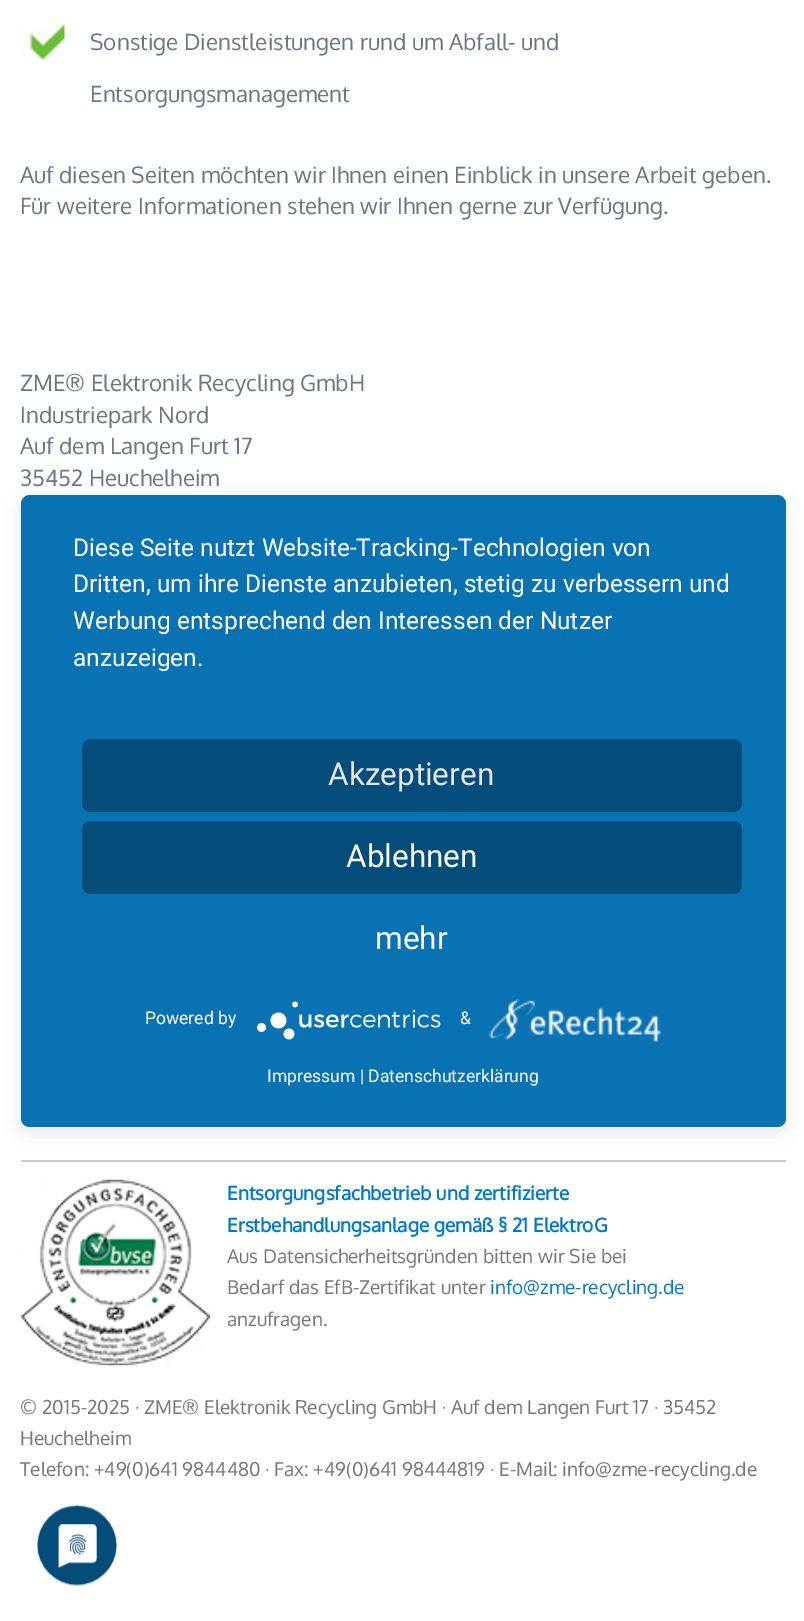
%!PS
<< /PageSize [804 1621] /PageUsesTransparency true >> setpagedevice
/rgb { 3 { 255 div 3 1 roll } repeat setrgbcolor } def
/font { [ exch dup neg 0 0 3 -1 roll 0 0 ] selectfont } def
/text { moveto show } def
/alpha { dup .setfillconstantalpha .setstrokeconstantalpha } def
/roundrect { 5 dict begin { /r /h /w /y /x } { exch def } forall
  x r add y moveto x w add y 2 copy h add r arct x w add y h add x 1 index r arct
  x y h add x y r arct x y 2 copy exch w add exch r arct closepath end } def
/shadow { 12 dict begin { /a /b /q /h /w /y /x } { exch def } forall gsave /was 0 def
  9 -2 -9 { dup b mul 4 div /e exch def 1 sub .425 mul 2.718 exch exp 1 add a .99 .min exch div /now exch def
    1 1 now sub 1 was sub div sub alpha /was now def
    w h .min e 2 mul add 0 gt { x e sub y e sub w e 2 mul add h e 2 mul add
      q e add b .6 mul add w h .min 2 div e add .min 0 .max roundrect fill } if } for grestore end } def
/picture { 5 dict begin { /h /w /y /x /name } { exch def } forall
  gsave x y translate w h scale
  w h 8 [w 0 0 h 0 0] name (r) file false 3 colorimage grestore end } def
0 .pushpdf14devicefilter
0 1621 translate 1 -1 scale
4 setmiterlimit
255 255 255 rgb
0 0 804 1621 rectfill
(img_01.rgb) 21 16 44 46 picture
204 204 204 rgb
21 1160 765 2 rectfill
(img_02.rgb) 21 1179 189 187 picture
0 0 0 rgb
21 501 765 631 9 9 0.1 shadow
gsave
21 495 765 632 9 roundrect clip newpath
21 506 765 632 0 31.5 0.3 shadow
grestore
9 114 179 rgb
21 495 765 632 9 roundrect fill
4 77 122 rgb
82 739 660 73 9 roundrect fill
82 821 660 73 9 roundrect fill
(img_03.rgb) 257 1001 184 39 picture
(img_04.rgb) 488 999 173 43 picture
(img_05.rgb) 36 1504 82 83 picture
/Oxygen-Regular 22.4 font
106 118 132 rgb
(Sonstige Dienstleistungen rund um Abfall- und) 90 50 text
(Entsorgungsmanagement) 90 102 text
(Auf diesen Seiten möchten wir Ihnen einen Einblick in unsere Arbeit geben.) 20 183 text
(Für weitere Informationen stehen wir Ihnen gerne zur Verfügung.) 20 214 text
(ZME® Elektronik Recycling GmbH) 20 391 text
(Industriepark Nord) 20 423 text
(Auf dem Langen Furt 17) 20 454 text
(35452 Heuchelheim) 20 486 text
/Oxygen-Bold 19.05 font
0 122 201 rgb
(Entsorgungsfachbetrieb und zertifizierte) 227 1200 text
(Erstbehandlungsanlage gemäß § 21 ElektroG) 227 1232 text
/Oxygen-Regular 19.05 font
119 119 119 rgb
(Aus Datensicherheitsgründen bitten wir Sie bei) 227 1263 text
(Bedarf das EfB-Zertifikat unter) 227 1294 text
0 122 201 rgb
(info@zme-recycling.de) 490 1294 text
119 119 119 rgb
(anzufragen.) 227 1326 text
(© 2015-2025 · ZME® Elektronik Recycling GmbH · Auf dem Langen Furt 17 · 35452) 20 1414 text
(Heuchelheim) 20 1445 text
(Telefon: +49\(0\)641 9844480 · Fax: +49\(0\)641 98444819 · E-Mail: info@zme-recycling.de) 20 1476 text
/Roboto-Regular 24.5 font
255 255 255 rgb
(Diese Seite nutzt Website-Tracking-Technologien von) 73 556 text
(Dritten, um ihre Dienste anzubieten, stetig zu verbessern und) 73 592 text
gsave
74 530 659 182 rectclip
(Werbung entsprechend den Interessen der Nutzer) 73 629 text
grestore
(anzuzeigen.) 73 666 text
/Roboto-Regular 31.5 font
230 230 230 rgb
(Akzeptieren) 328 785 text
255 255 255 rgb
(Ablehnen) 346 867 text
(mehr) 375 949 text
/Roboto-Regular 17.5 font
(Powered by) 145 1024 text
(&) 460 1024 text
(Impressum | Datenschutzerklärung) 267 1082 text
.poppdf14devicefilter showpage
